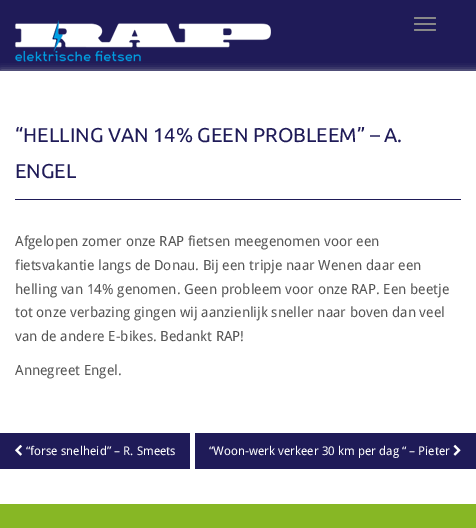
%!PS
<< /PageSize [476 528] /PageUsesTransparency true >> setpagedevice
/rgb { 3 { 255 div 3 1 roll } repeat setrgbcolor } def
/font { [ exch dup neg 0 0 3 -1 roll 0 0 ] selectfont } def
/text { moveto show } def
/alpha { dup .setfillconstantalpha .setstrokeconstantalpha } def
/roundrect { 5 dict begin { /r /h /w /y /x } { exch def } forall
  x r add y moveto x w add y 2 copy h add r arct x w add y h add x 1 index r arct
  x y h add x y r arct x y 2 copy exch w add exch r arct closepath end } def
/shadow { 12 dict begin { /a /b /q /h /w /y /x } { exch def } forall gsave /was 0 def
  9 -2 -9 { dup b mul 4 div /e exch def 1 sub .425 mul 2.718 exch exp 1 add a .99 .min exch div /now exch def
    1 1 now sub 1 was sub div sub alpha /was now def
    w h .min e 2 mul add 0 gt { x e sub y e sub w e 2 mul add h e 2 mul add
      q e add b .6 mul add w h .min 2 div e add .min 0 .max roundrect fill } if } for grestore end } def
/picture { 5 dict begin { /h /w /y /x /name } { exch def } forall
  gsave x y translate w h scale
  w h 8 [w 0 0 h 0 0] name (r) file false 3 colorimage grestore end } def
0 .pushpdf14devicefilter
0 528 translate 1 -1 scale
4 setmiterlimit
31 27 88 rgb
0 0 476 528 rectfill
199 199 199 rgb
1 72 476 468 0 4 1 shadow
(img_01.rgb) 15 20 256 42 picture
136 136 136 rgb
414 17 22 2 1 roundrect fill
414 23 22 2 1 roundrect fill
414 29 22 2 1 roundrect fill
255 255 255 rgb
0 71 476 433 rectfill
31 27 88 rgb
15 199 446 1 rectfill
0 433 190 36 rectfill
(img_02.rgb) 15 444 7 12 picture
195 433 281 36 rectfill
(img_03.rgb) 453 444 8 12 picture
135 183 37 rgb
0 504 476 24 rectfill
/Ubuntu-Regular 20 font
31 27 88 rgb
(“HELLING VAN 14% GEEN PROBLEEM” – A.) 15 142 text
(ENGEL) 15 178 text
/DroidSans-Regular 14 font
85 85 85 rgb
(Afgelopen zomer onze RAP fietsen meegenomen voor een) 15 246 text
(fietsvakantie langs de Donau. Bij een tripje naar Wenen daar een) 15 270 text
(helling van 14% genomen. Geen probleem voor onze RAP. Een beetje) 15 294 text
(tot onze verbazing gingen wij aanzienlijk sneller naar boven dan veel) 15 317 text
(van de andere E-bikes. Bedankt RAP!) 15 341 text
(Annegreet Engel.) 15 375 text
/DroidSans-Regular 12 font
255 255 255 rgb
(“forse snelheid” – R. Smeets) 26 455 text
(“Woon-werk verkeer 30 km per dag “ – Pieter) 209 455 text
.poppdf14devicefilter showpage
